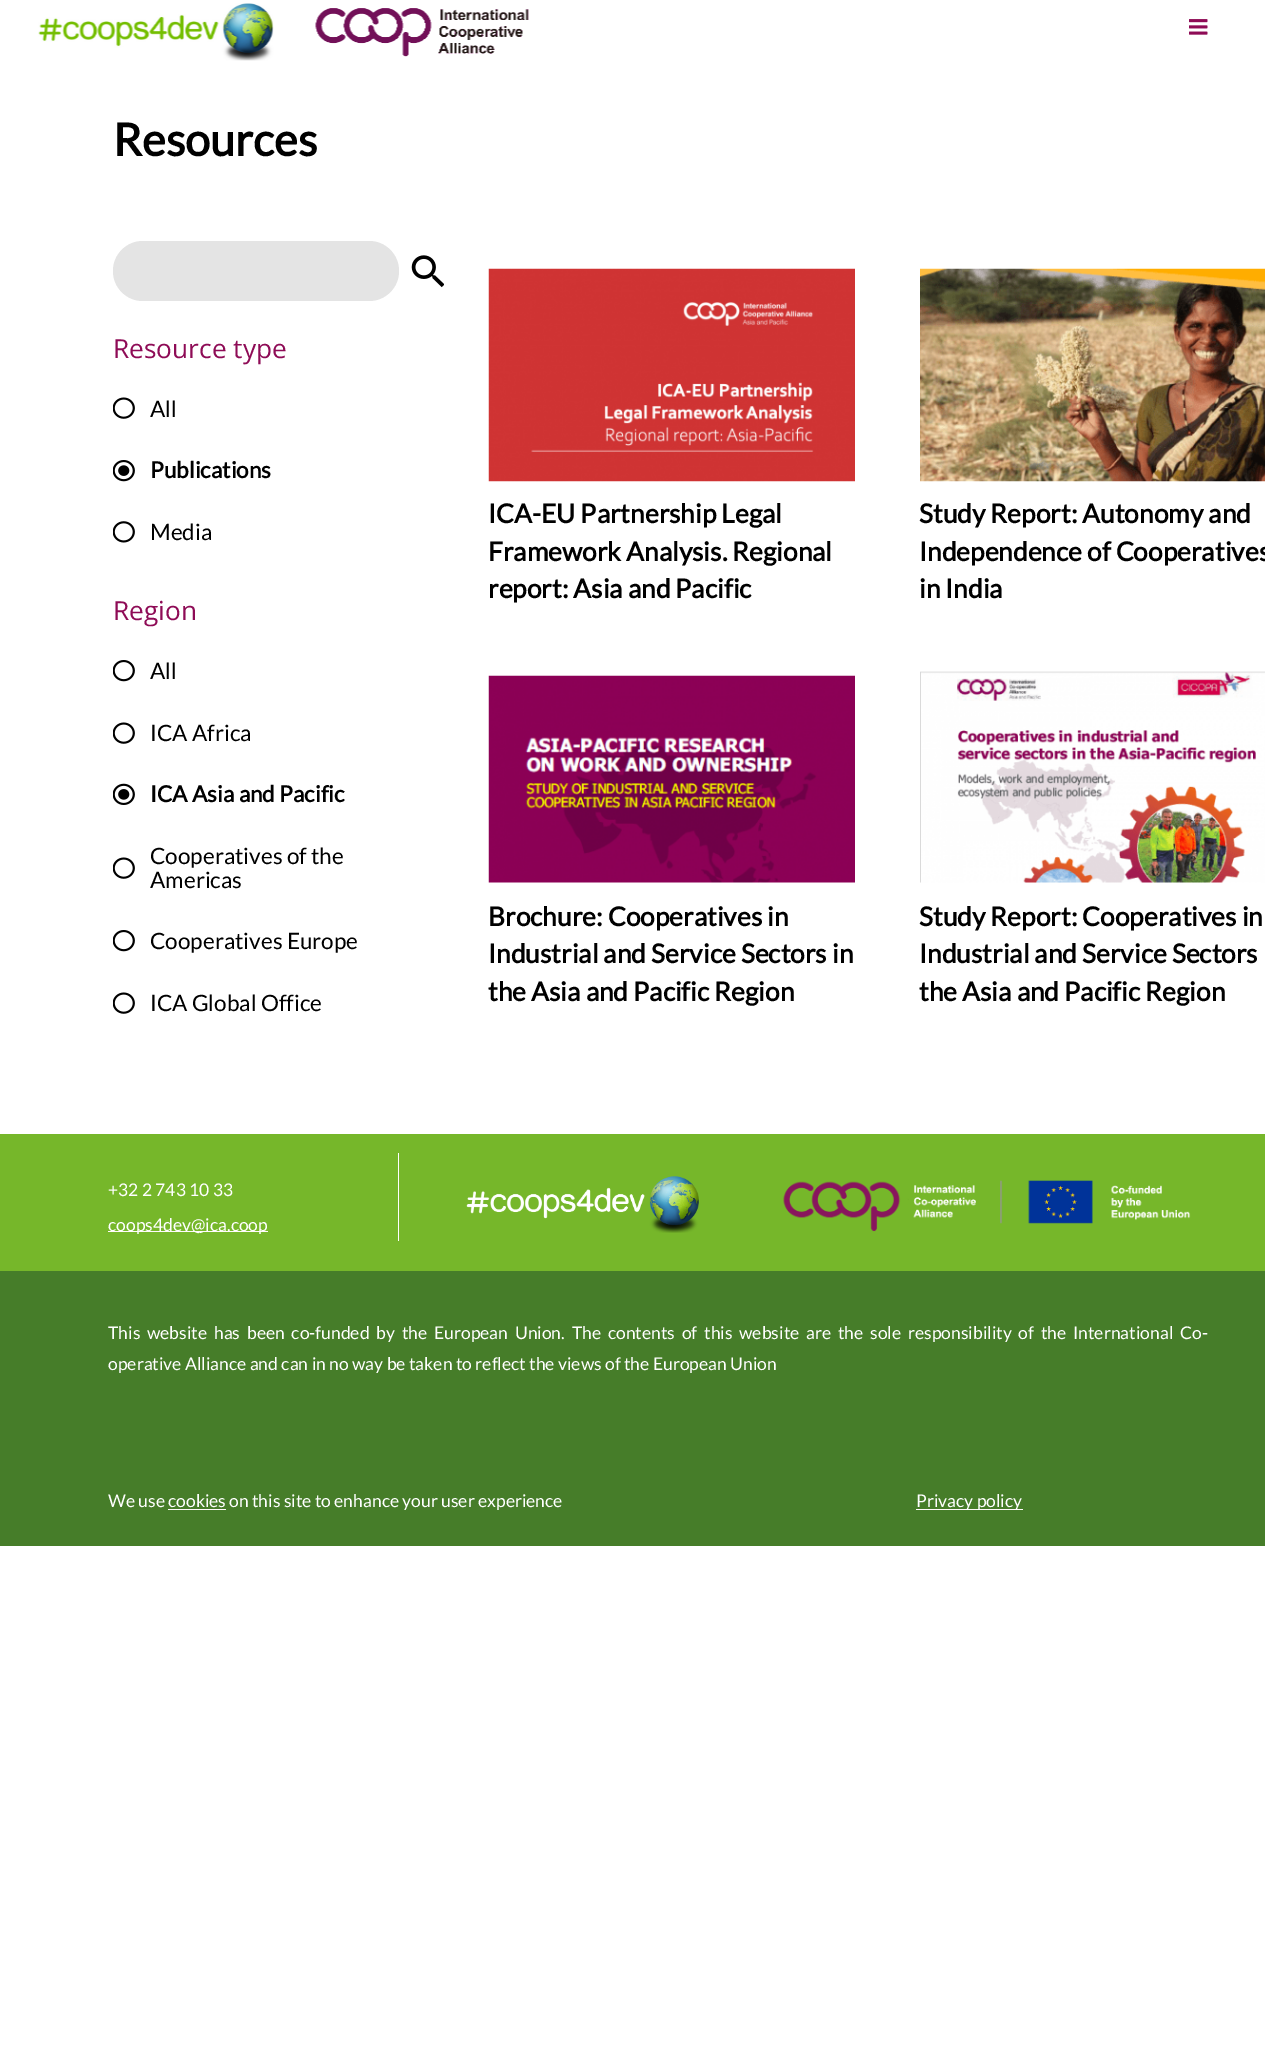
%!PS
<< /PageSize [1265 2054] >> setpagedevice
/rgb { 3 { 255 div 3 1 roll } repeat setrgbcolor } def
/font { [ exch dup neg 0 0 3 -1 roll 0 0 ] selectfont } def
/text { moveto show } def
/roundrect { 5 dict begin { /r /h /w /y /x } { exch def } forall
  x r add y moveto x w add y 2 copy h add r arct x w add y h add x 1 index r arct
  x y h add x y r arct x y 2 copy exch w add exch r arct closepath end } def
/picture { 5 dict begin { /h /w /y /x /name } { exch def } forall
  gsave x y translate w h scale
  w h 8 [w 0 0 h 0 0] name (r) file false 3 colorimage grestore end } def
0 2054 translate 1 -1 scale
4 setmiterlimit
255 255 255 rgb
0 0 1265 2054 rectfill
(img_01.rgb) 38 3 236 58 picture
(img_02.rgb) 315 8 214 49 picture
(img_03.rgb) 1189 19 19 16 picture
228 228 228 rgb
113 241 286 60 30 roundrect fill
(img_04.rgb) 411 255 33 33 picture
(img_05.rgb) 113 397 22 22 picture
(img_06.rgb) 113 460 22 22 picture
(img_07.rgb) 113 521 22 22 picture
(img_08.rgb) 113 660 22 22 picture
(img_05.rgb) 113 722 22 22 picture
(img_09.rgb) 113 783 22 22 picture
(img_05.rgb) 113 857 22 22 picture
(img_08.rgb) 113 930 22 22 picture
(img_05.rgb) 113 992 22 22 picture
(img_10.rgb) 488 268 367 214 picture
(img_11.rgb) 920 268 345 214 picture
(img_12.rgb) 488 675 367 208 picture
(img_13.rgb) 920 671 345 212 picture
118 183 42 rgb
0 1134 1265 137 rectfill
255 255 255 rgb
398 1153 1 88 rectfill
255 250 250 rgb
108 1231 160 1 rectfill
(img_14.rgb) 466 1176 233 57 picture
(img_15.rgb) 783 1180 408 52 picture
70 125 41 rgb
0 1271 1265 275 rectfill
255 250 250 rgb
168 1509 58 1 rectfill
916 1509 107 1 rectfill
/Lato-Bold 45 font
0 0 0 rgb
(Resources) 113 156 text
/OpenSans-Regular 26.25 font
142 11 86 rgb
(Resource type) 113 358 text
/Lato-Regular 22.5 font
0 0 0 rgb
(All) 150 417 text
/Lato-Bold 22.5 font
(Publications) 150 478 text
/Lato-Regular 22.5 font
(Media) 150 540 text
/OpenSans-Regular 26.25 font
142 11 86 rgb
(Region) 113 620 text
/Lato-Regular 22.5 font
0 0 0 rgb
(All) 150 679 text
(ICA Africa) 150 741 text
/Lato-Bold 22.5 font
(ICA Asia and Pacific) 150 802 text
/Lato-Regular 22.5 font
(Cooperatives of the) 150 864 text
(Americas) 150 888 text
(Cooperatives Europe) 150 949 text
(ICA Global Office) 150 1011 text
/Lato-Bold 26.25 font
(ICA-EU Partnership Legal) 488 523 text
(Framework Analysis. Regional) 488 561 text
(report: Asia and Pacific) 488 598 text
(Study Report: Autonomy and) 919 523 text
(Independence of Cooperatives) 919 561 text
(in India) 919 598 text
(Brochure: Cooperatives in) 488 926 text
(Industrial and Service Sectors in) 488 963 text
(the Asia and Pacific Region) 488 1001 text
(Study Report: Cooperatives in) 919 926 text
(Industrial and Service Sectors) 919 963 text
(the Asia and Pacific Region) 919 1001 text
/Lato-Regular 17.5 font
255 255 255 rgb
(+32 2 743 10 33) 108 1196 text
(coops4dev@ica.coop) 108 1231 text
108 1339 moveto 3.4 0 32 (This website has been co-funded by the European Union. The contents of this website are the sole responsibility of the International Co-) widthshow
(operative Alliance and can in no way be taken to reflect the views of the European Union) 108 1370 text
(We use) 108 1507 text
(cookies) 168 1507 text
(on this site to enhance your user experience) 229 1507 text
(Privacy policy) 916 1507 text
showpage
